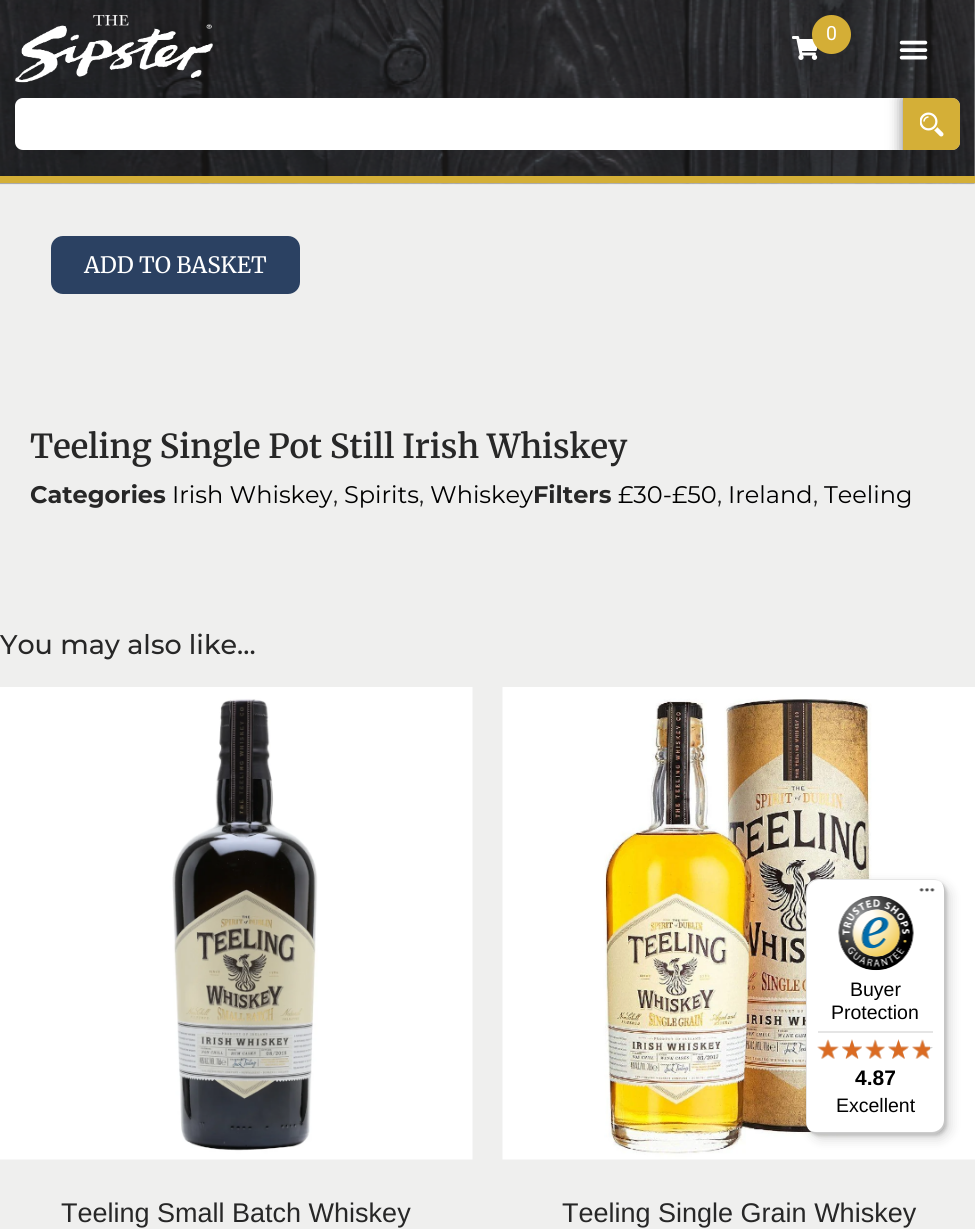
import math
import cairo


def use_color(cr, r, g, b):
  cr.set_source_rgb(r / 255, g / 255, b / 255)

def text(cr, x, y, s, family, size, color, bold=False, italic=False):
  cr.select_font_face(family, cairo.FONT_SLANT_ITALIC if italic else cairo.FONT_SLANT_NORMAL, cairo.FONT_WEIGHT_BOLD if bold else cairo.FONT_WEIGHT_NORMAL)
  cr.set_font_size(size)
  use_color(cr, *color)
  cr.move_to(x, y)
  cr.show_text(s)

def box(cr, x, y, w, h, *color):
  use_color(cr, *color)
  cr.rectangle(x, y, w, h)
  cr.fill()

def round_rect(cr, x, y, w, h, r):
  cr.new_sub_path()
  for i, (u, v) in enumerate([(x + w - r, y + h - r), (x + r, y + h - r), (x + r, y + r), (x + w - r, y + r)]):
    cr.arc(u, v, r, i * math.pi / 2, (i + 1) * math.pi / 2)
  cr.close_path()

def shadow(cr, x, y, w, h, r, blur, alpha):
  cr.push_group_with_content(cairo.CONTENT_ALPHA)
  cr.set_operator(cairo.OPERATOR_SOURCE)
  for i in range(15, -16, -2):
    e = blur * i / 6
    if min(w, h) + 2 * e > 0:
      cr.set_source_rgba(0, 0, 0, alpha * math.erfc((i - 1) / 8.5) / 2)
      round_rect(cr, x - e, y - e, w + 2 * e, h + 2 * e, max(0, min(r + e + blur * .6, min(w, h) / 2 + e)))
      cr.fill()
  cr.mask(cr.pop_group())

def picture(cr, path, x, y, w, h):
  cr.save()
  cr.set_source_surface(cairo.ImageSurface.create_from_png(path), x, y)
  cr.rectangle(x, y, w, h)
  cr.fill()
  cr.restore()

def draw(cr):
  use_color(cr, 239, 239, 238)
  cr.paint()
  picture(cr, "img_01.png", 0, 0, 975, 185)
  box(cr, 0, 176, 975, 7, 212, 175, 55)
  picture(cr, "img_02.png", 15, 15, 198, 68)
  picture(cr, "img_03.png", 792, 36, 26, 24)
  use_color(cr, 212, 174, 54)
  cr.arc(831.5, 34.5, 19.5, 0, 2 * math.pi)
  cr.fill()
  picture(cr, "img_04.png", 899, 40, 29, 20)
  use_color(cr, 255, 255, 255)
  round_rect(cr, 15, 98, 945, 52, 8)
  cr.fill()
  cr.save()
  round_rect(cr, 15, 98, 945, 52, 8)
  cr.clip()
  use_color(cr, 0, 0, 0)
  shadow(cr, 903, 98, 57, 54, 0, 7.5, 0.5)
  cr.restore()
  use_color(cr, 212, 175, 55)
  cr.new_path()
  cr.move_to(903, 98)
  cr.line_to(952, 98)
  cr.curve_to(956.5, 98, 960, 101.5, 960, 106)
  cr.line_to(960, 142)
  cr.curve_to(960, 146.5, 956.5, 150, 952, 150)
  cr.line_to(903, 150)
  cr.close_path()
  cr.fill()
  picture(cr, "img_05.png", 920, 112, 24, 25)
  use_color(cr, 43, 65, 98)
  round_rect(cr, 52.5, 237.5, 246, 55, 10.5)
  cr.fill_preserve()
  cr.set_line_width(3)
  cr.stroke()
  picture(cr, "img_06.png", 0, 687, 473, 473)
  picture(cr, "img_07.png", 502, 687, 473, 473)
  use_color(cr, 0, 0, 0)
  shadow(cr, 810, 884, 140, 255, 12, 6, 0.15)
  shadow(cr, 807, 881, 140, 255, 12, 1.5, 0.15)
  use_color(cr, 255, 255, 255)
  round_rect(cr, 806, 879, 139, 255, 12)
  cr.fill()
  cr.set_source_rgba(0, 0, 0, 0.1)
  cr.new_path()
  cr.move_to(819, 880)
  cr.line_to(934, 880)
  cr.curve_to(937, 880, 940, 881, 942, 883)
  cr.curve_to(940, 881, 937, 879, 933, 879)
  cr.line_to(818, 879)
  cr.curve_to(811, 879, 806, 884, 806, 891)
  cr.line_to(806, 1122)
  cr.curve_to(806, 1124, 807, 1127, 808, 1129)
  cr.line_to(807, 1124)
  cr.line_to(807, 892)
  cr.curve_to(807, 886, 812, 880, 819, 880)
  cr.close_path()
  cr.fill()
  cr.set_source_rgba(0, 0, 0, 0.2)
  cr.new_path()
  cr.move_to(809, 1130)
  cr.curve_to(811, 1132, 814, 1134, 818, 1134)
  cr.line_to(933, 1134)
  cr.curve_to(940, 1134, 945, 1129, 945, 1122)
  cr.line_to(945, 891)
  cr.curve_to(945, 887, 943, 884, 941, 882)
  cr.curve_to(943, 884, 944, 887, 944, 890)
  cr.line_to(944, 1120)
  cr.curve_to(944, 1127, 938, 1132, 932, 1132)
  cr.line_to(816, 1132)
  cr.curve_to(813, 1132, 811, 1131, 809, 1130)
  cr.close_path()
  cr.fill()
  cr.set_source_rgba(0.196, 0.196, 0.196, 0.2)
  cr.new_path()
  cr.move_to(810, 1131)
  cr.curve_to(812, 1133, 815, 1134, 818, 1134)
  cr.line_to(933, 1134)
  cr.curve_to(940, 1134, 945, 1129, 945, 1122)
  cr.line_to(945, 891)
  cr.curve_to(945, 888, 944, 885, 942, 883)
  cr.curve_to(943, 885, 944, 887, 944, 890)
  cr.line_to(944, 1121)
  cr.curve_to(944, 1128, 939, 1133, 932, 1133)
  cr.line_to(817, 1133)
  cr.curve_to(814, 1133, 812, 1132, 810, 1131)
  cr.close_path()
  cr.fill()
  cr.set_source_rgba(1, 1, 1, 0.3)
  cr.new_path()
  cr.move_to(810, 1131)
  cr.curve_to(812, 1133, 815, 1134, 818, 1134)
  cr.line_to(933, 1134)
  cr.curve_to(940, 1134, 945, 1129, 945, 1122)
  cr.line_to(945, 891)
  cr.curve_to(945, 887, 943, 884, 941, 882)
  cr.curve_to(943, 884, 944, 887, 944, 890)
  cr.line_to(944, 1121)
  cr.curve_to(944, 1128, 939, 1133, 932, 1133)
  cr.line_to(817, 1133)
  cr.curve_to(814, 1133, 812, 1132, 810, 1131)
  cr.close_path()
  cr.fill()
  picture(cr, "img_08.png", 919, 888, 16, 4)
  picture(cr, "img_09.png", 838, 896, 76, 75)
  box(cr, 818, 1031, 115, 2, 229, 229, 229)
  picture(cr, "img_10.png", 817, 1040, 22, 19)
  picture(cr, "img_11.png", 842, 1039, 20, 20)
  picture(cr, "img_12.png", 865, 1040, 20, 19)
  picture(cr, "img_13.png", 888, 1039, 21, 20)
  picture(cr, "img_14.png", 912, 1040, 21, 19)
  picture(cr, "img_15.png", 817, 1039, 22, 20)
  picture(cr, "img_16.png", 842, 1039, 20, 20)
  picture(cr, "img_17.png", 865, 1039, 20, 20)
  picture(cr, "img_18.png", 888, 1039, 21, 20)
  picture(cr, "img_19.png", 912, 1039, 18, 20)
  text(cr, 826, 40, "0", "Roboto", 19.5, (255, 255, 255))
  text(cr, 84, 273, "ADD TO BASKET", "Merriweather", 22.5, (255, 255, 255))
  text(cr, 30, 458, "Teeling Single Pot Still Irish Whiskey", "Merriweather SemiBold", 33, (39, 39, 39))
  text(cr, 30, 503, "Categories", "Montserrat", 24, (39, 39, 39), bold=True)
  text(cr, 172, 503, "Irish Whiskey", "Montserrat", 24, (0, 0, 0))
  text(cr, 333, 503, ",", "Montserrat", 24, (39, 39, 39))
  text(cr, 344, 503, "Spirits", "Montserrat", 24, (0, 0, 0))
  text(cr, 419, 503, ",", "Montserrat", 24, (39, 39, 39))
  text(cr, 430, 503, "Whiskey", "Montserrat", 24, (0, 0, 0))
  text(cr, 533, 503, "Filters", "Montserrat", 24, (39, 39, 39), bold=True)
  text(cr, 618, 503, "£30-£50", "Montserrat", 24, (0, 0, 0))
  text(cr, 717, 503, ",", "Montserrat", 24, (39, 39, 39))
  text(cr, 728, 503, "Ireland", "Montserrat", 24, (0, 0, 0))
  text(cr, 813, 503, ",", "Montserrat", 24, (39, 39, 39))
  text(cr, 824, 503, "Teeling", "Montserrat", 24, (0, 0, 0))
  text(cr, 0, 654, "You may also like…", "Montserrat Medium", 27, (39, 39, 39))
  text(cr, 61, 1222, "Teeling Small Batch Whiskey", "Liberation Sans", 27, (39, 39, 39))
  text(cr, 562, 1222, "Teeling Single Grain Whiskey", "Liberation Sans", 27, (39, 39, 39))
  text(cr, 850, 996, "Buyer", "Liberation Sans", 19.5, (0, 0, 0))
  text(cr, 831, 1019, "Protection", "Liberation Sans", 19.5, (0, 0, 0))
  text(cr, 855, 1085, "4.87", "Liberation Sans", 21, (0, 0, 0), bold=True)
  text(cr, 836, 1112, "Excellent", "Liberation Sans", 19.5, (0, 0, 0))


surface = cairo.ImageSurface(cairo.FORMAT_RGB24, 975, 1229)
cr = cairo.Context(surface)
options = cairo.FontOptions()
options.set_hint_metrics(cairo.HINT_METRICS_OFF)
options.set_hint_style(cairo.HINT_STYLE_NONE)
cr.set_font_options(options)
cr.set_miter_limit(4)
draw(cr)
surface.write_to_png("out.png")
